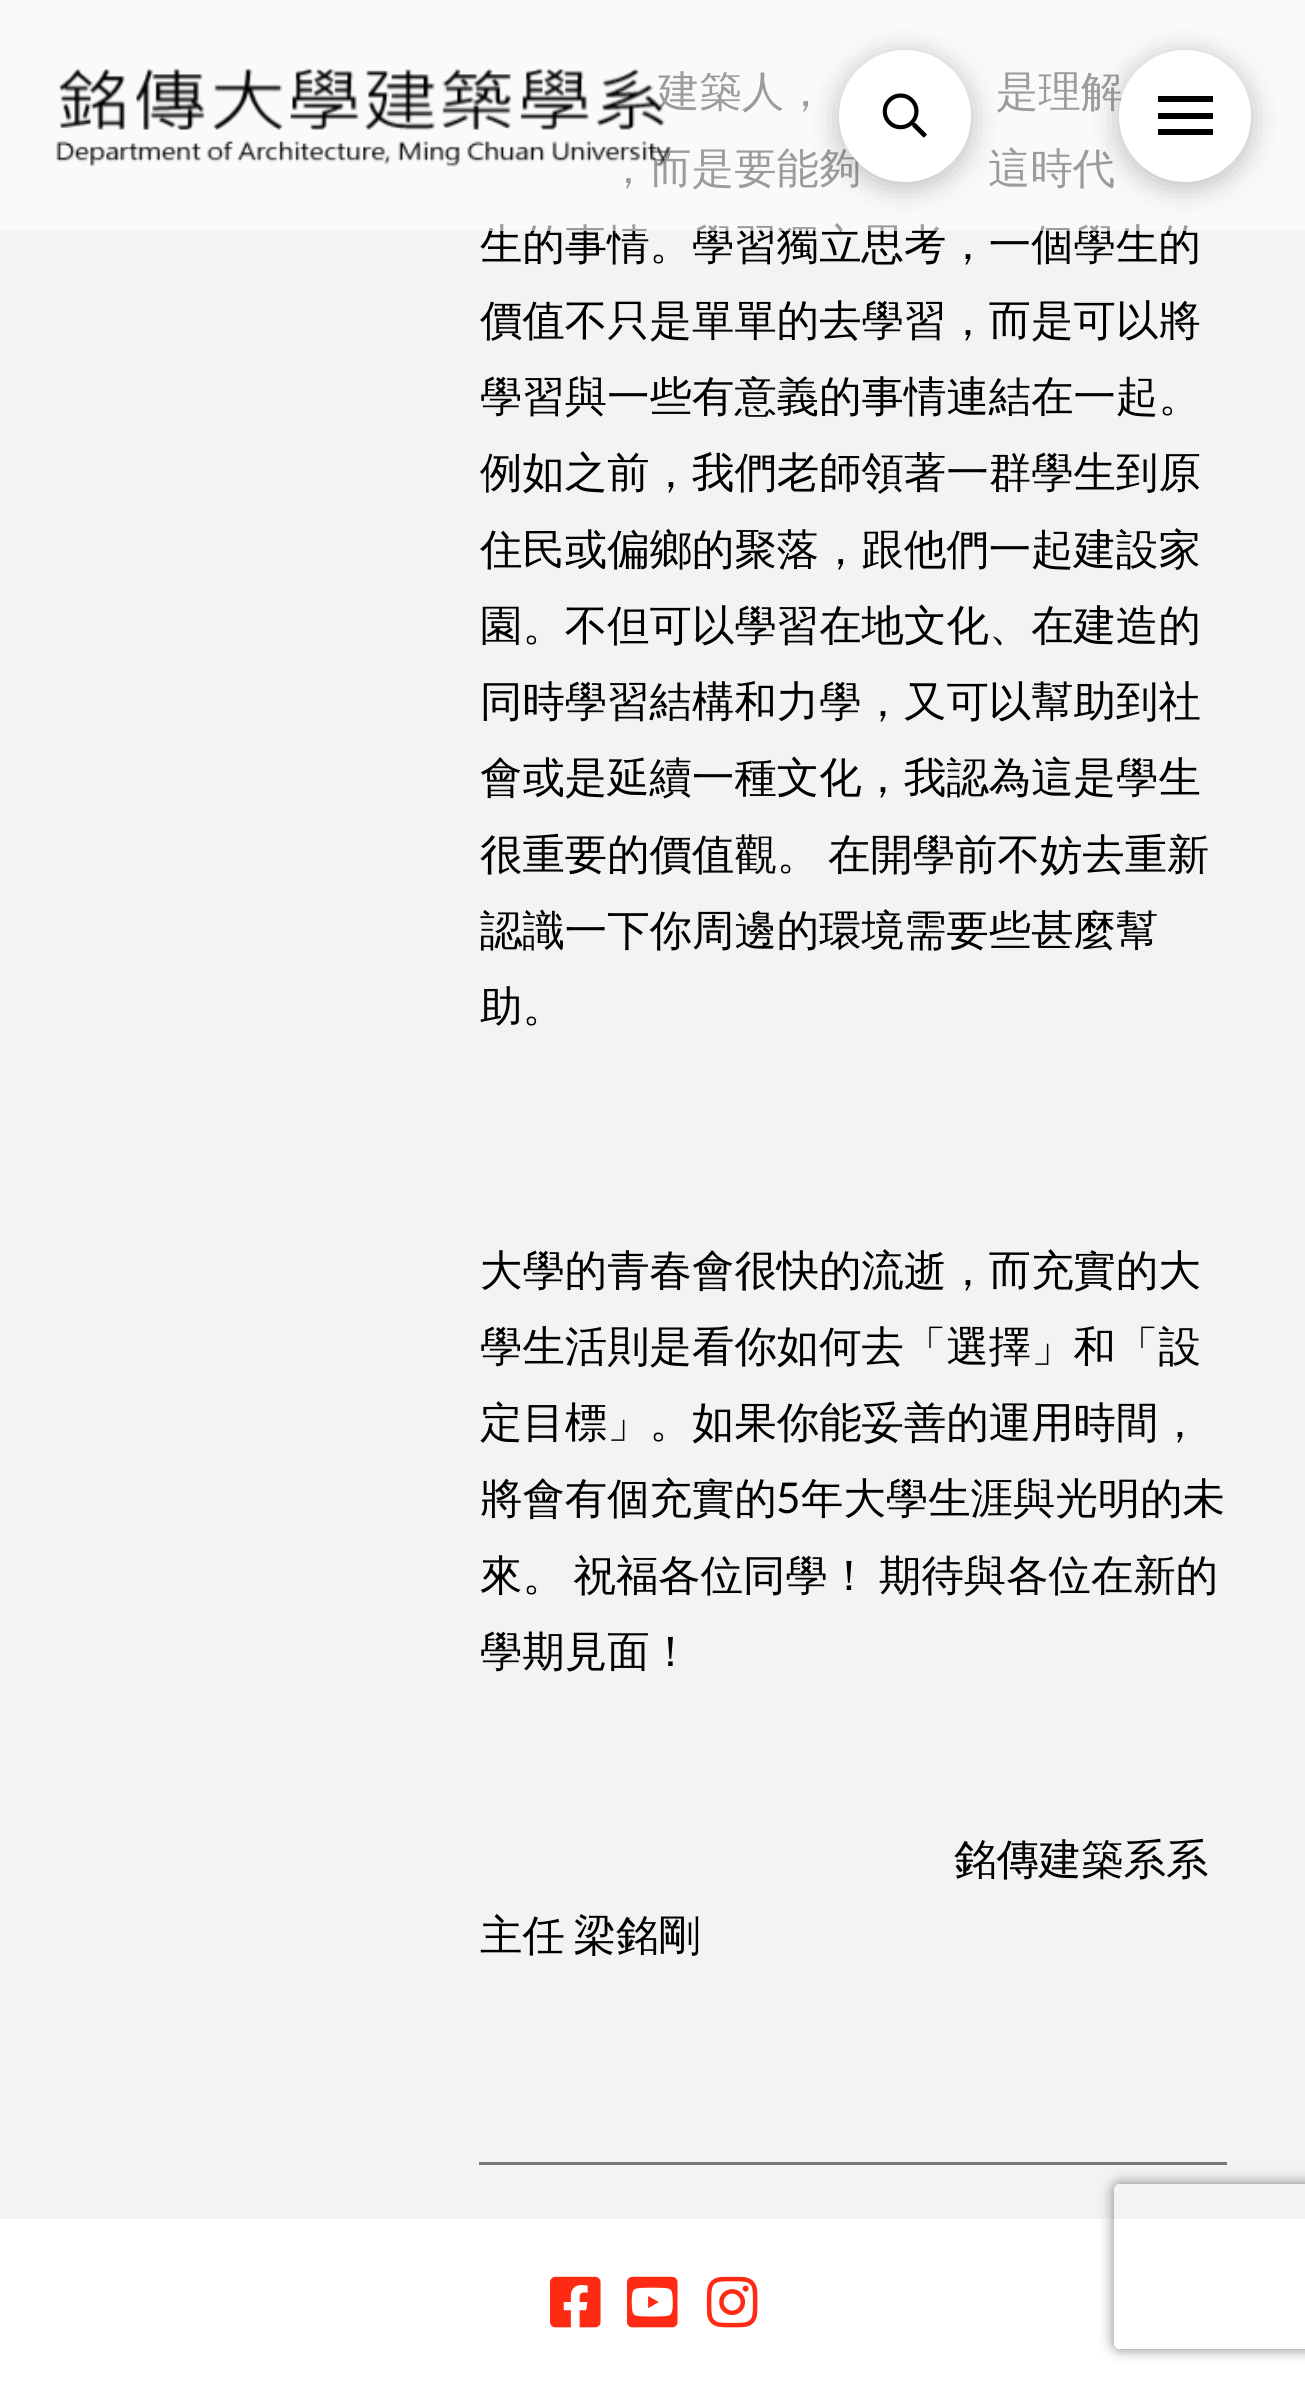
import math
import cairo


def use_color(cr, r, g, b):
  cr.set_source_rgb(r / 255, g / 255, b / 255)

def text(cr, x, y, s, family, size, color, bold=False, italic=False):
  cr.select_font_face(family, cairo.FONT_SLANT_ITALIC if italic else cairo.FONT_SLANT_NORMAL, cairo.FONT_WEIGHT_BOLD if bold else cairo.FONT_WEIGHT_NORMAL)
  cr.set_font_size(size)
  use_color(cr, *color)
  cr.move_to(x, y)
  cr.show_text(s)

def spaced_text(cr, x, y, s, letter, word):
  cr.move_to(x, y)
  for ch in s:
    cr.show_text(ch)
    cr.rel_move_to(letter + word * (ch == ' '), 0)

def box(cr, x, y, w, h, *color):
  use_color(cr, *color)
  cr.rectangle(x, y, w, h)
  cr.fill()

def round_rect(cr, x, y, w, h, r):
  cr.new_sub_path()
  for i, (u, v) in enumerate([(x + w - r, y + h - r), (x + r, y + h - r), (x + r, y + r), (x + w - r, y + r)]):
    cr.arc(u, v, r, i * math.pi / 2, (i + 1) * math.pi / 2)
  cr.close_path()

def shadow(cr, x, y, w, h, r, blur, alpha):
  cr.push_group_with_content(cairo.CONTENT_ALPHA)
  cr.set_operator(cairo.OPERATOR_SOURCE)
  for i in range(15, -16, -2):
    e = blur * i / 6
    if min(w, h) + 2 * e > 0:
      cr.set_source_rgba(0, 0, 0, alpha * math.erfc((i - 1) / 8.5) / 2)
      round_rect(cr, x - e, y - e, w + 2 * e, h + 2 * e, max(0, min(r + e + blur * .6, min(w, h) / 2 + e)))
      cr.fill()
  cr.mask(cr.pop_group())

def picture(cr, path, x, y, w, h):
  cr.save()
  cr.set_source_surface(cairo.ImageSurface.create_from_png(path), x, y)
  cr.rectangle(x, y, w, h)
  cr.fill()
  cr.restore()

def draw(cr):
  use_color(cr, 243, 243, 243)
  cr.paint()
  box(cr, 0, 2219, 1305, 168, 255, 255, 255)
  cr.save()
  cr.set_fill_rule(cairo.FILL_RULE_EVEN_ODD)
  cr.new_path()
  cr.move_to(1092, 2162)
  cr.line_to(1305, 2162)
  cr.line_to(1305, 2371)
  cr.line_to(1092, 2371)
  cr.close_path()
  cr.move_to(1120, 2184)
  cr.line_to(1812, 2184)
  cr.curve_to(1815.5, 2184, 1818, 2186.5, 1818, 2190)
  cr.line_to(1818, 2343)
  cr.curve_to(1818, 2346.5, 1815.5, 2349, 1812, 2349)
  cr.line_to(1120, 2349)
  cr.curve_to(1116.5, 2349, 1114, 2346.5, 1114, 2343)
  cr.line_to(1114, 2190)
  cr.curve_to(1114, 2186.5, 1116.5, 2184, 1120, 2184)
  cr.close_path()
  cr.clip()
  use_color(cr, 128, 128, 128)
  shadow(cr, 1114, 2184, 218, 165, 6, 7, 1)
  cr.restore()
  box(cr, 479, 2162, 748, 3, 121, 121, 121)
  picture(cr, "img_03.png", 550, 2276, 51, 52)
  picture(cr, "img_04.png", 627, 2276, 51, 52)
  picture(cr, "img_05.png", 706, 2276, 52, 52)
  text(cr, 657, 106, "建築人，", "WenQuanYi Zen Hei Medium", 42.4, (0, 0, 0))
  text(cr, 996, 106, "是理解", "WenQuanYi Zen Hei Medium", 42.4, (0, 0, 0))
  text(cr, 607, 183, "，而是要能夠", "WenQuanYi Zen Hei Medium", 42.4, (0, 0, 0))
  text(cr, 988, 183, "這時代", "WenQuanYi Zen Hei Medium", 42.4, (0, 0, 0))
  text(cr, 480, 259, "生的事情。學習獨立思考，一個學生的", "WenQuanYi Zen Hei Medium", 42.4, (0, 0, 0))
  cr.set_source_rgba(1, 1, 1, 0.61)
  cr.rectangle(0, 0, 1305, 231)
  cr.fill()
  use_color(cr, 0, 0, 0)
  shadow(cr, 1119, 55, 132, 132, 66, 14.5, 0.25)
  use_color(cr, 255, 255, 255)
  cr.arc(1185, 116, 66, 0, 2 * math.pi)
  cr.fill()
  box(cr, 1158, 129, 55, 6, 0, 0, 0)
  box(cr, 1158, 113, 55, 6, 0, 0, 0)
  box(cr, 1158, 96, 55, 6, 0, 0, 0)
  use_color(cr, 0, 0, 0)
  shadow(cr, 839, 55, 132, 132, 66, 14.5, 0.25)
  use_color(cr, 255, 255, 255)
  cr.arc(905, 116, 66, 0, 2 * math.pi)
  cr.fill()
  picture(cr, "img_02.png", 882, 93, 45, 45)
  picture(cr, "img_01.png", 56, 68, 616, 99)
  text(cr, 480, 335, "價值不只是單單的去學習，而是可以將", "WenQuanYi Zen Hei Medium", 42.4, (0, 0, 0))
  text(cr, 480, 411, "學習與一些有意義的事情連結在一起。", "WenQuanYi Zen Hei Medium", 42.4, (0, 0, 0))
  text(cr, 480, 487, "例如之前，我們老師領著一群學生到原", "WenQuanYi Zen Hei Medium", 42.4, (0, 0, 0))
  text(cr, 480, 564, "住民或偏鄉的聚落，跟他們一起建設家", "WenQuanYi Zen Hei Medium", 42.4, (0, 0, 0))
  text(cr, 480, 640, "園。不但可以學習在地文化、在建造的", "WenQuanYi Zen Hei Medium", 42.4, (0, 0, 0))
  text(cr, 480, 716, "同時學習結構和力學，又可以幫助到社", "WenQuanYi Zen Hei Medium", 42.4, (0, 0, 0))
  text(cr, 480, 792, "會或是延續一種文化，我認為這是學生", "WenQuanYi Zen Hei Medium", 42.4, (0, 0, 0))
  spaced_text(cr, 480, 869, "很重要的價值觀。 在開學前不妨去重新", 0, -4)
  text(cr, 480, 945, "認識一下你周邊的環境需要些甚麼幫", "WenQuanYi Zen Hei Medium", 42.4, (0, 0, 0))
  text(cr, 480, 1021, "助。", "WenQuanYi Zen Hei Medium", 42.4, (0, 0, 0))
  text(cr, 480, 1285, "大學的青春會很快的流逝，而充實的大", "WenQuanYi Zen Hei Medium", 42.4, (0, 0, 0))
  text(cr, 480, 1361, "學生活則是看你如何去「選擇」和「設", "WenQuanYi Zen Hei Medium", 42.4, (0, 0, 0))
  text(cr, 480, 1437, "定目標」。如果你能妥善的運用時間，", "WenQuanYi Zen Hei Medium", 42.4, (0, 0, 0))
  text(cr, 480, 1513, "將會有個充實的", "WenQuanYi Zen Hei Medium", 42.4, (0, 0, 0))
  text(cr, 776, 1513, "5", "Lato", 42.4, (0, 0, 0))
  text(cr, 801, 1513, "年大學生涯與光明的未", "WenQuanYi Zen Hei Medium", 42.4, (0, 0, 0))
  spaced_text(cr, 480, 1590, "來。 祝福各位同學！ 期待與各位在新的", 0, -4)
  text(cr, 480, 1666, "學期見面！", "WenQuanYi Zen Hei Medium", 42.4, (0, 0, 0))
  text(cr, 954, 1874, "銘傳建築系系", "WenQuanYi Zen Hei Medium", 42.4, (0, 0, 0))
  spaced_text(cr, 480, 1950, "主任 梁銘剛", 0, -4)


surface = cairo.ImageSurface(cairo.FORMAT_RGB24, 1305, 2387)
cr = cairo.Context(surface)
options = cairo.FontOptions()
options.set_hint_metrics(cairo.HINT_METRICS_OFF)
options.set_hint_style(cairo.HINT_STYLE_NONE)
cr.set_font_options(options)
cr.set_miter_limit(4)
draw(cr)
surface.write_to_png("out.png")
